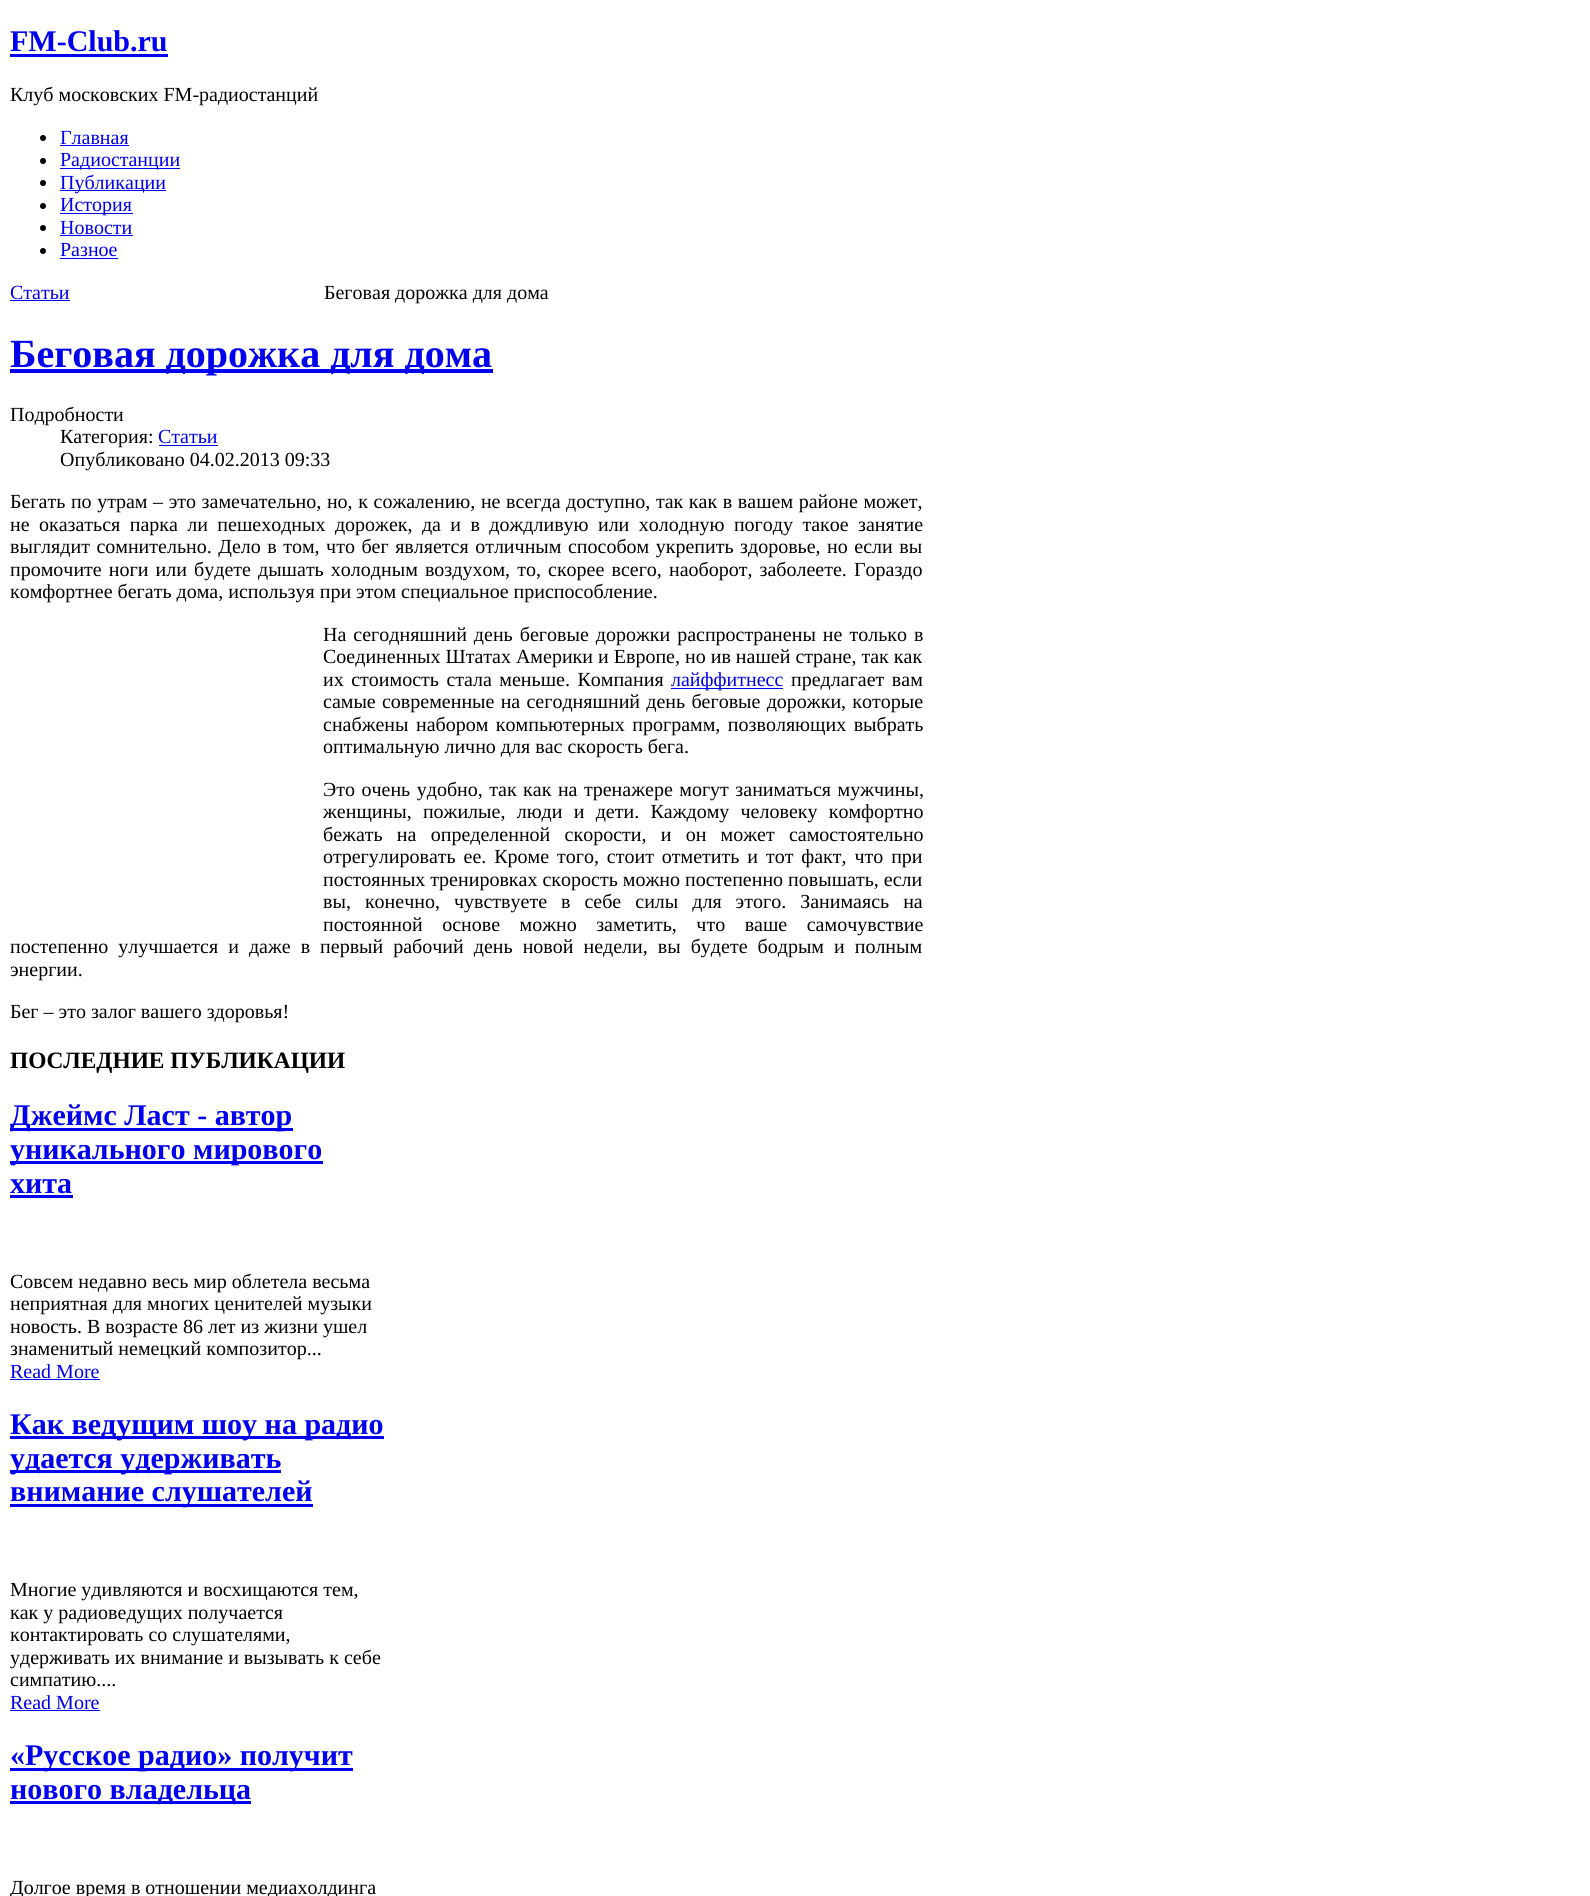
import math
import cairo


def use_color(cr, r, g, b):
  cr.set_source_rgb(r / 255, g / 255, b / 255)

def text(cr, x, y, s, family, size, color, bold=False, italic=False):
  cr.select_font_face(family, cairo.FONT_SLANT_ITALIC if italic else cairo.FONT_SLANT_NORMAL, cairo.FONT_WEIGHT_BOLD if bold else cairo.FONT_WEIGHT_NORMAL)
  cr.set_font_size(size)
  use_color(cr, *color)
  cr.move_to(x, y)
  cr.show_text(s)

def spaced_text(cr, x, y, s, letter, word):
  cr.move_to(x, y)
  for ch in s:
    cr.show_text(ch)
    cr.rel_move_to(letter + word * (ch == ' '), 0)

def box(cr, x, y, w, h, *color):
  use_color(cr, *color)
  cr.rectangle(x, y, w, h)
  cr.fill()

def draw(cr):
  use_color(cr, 255, 255, 255)
  cr.paint()
  box(cr, 10, 54, 158, 3, 0, 0, 238)
  use_color(cr, 0, 0, 0)
  cr.arc(43, 138, 3, 0, 2 * math.pi)
  cr.fill()
  box(cr, 60, 145, 69, 1, 0, 0, 238)
  use_color(cr, 0, 0, 0)
  cr.arc(43, 161, 3, 0, 2 * math.pi)
  cr.fill()
  box(cr, 60, 168, 120, 1, 0, 0, 238)
  use_color(cr, 0, 0, 0)
  cr.arc(43, 183, 3, 0, 2 * math.pi)
  cr.fill()
  box(cr, 60, 190, 106, 1, 0, 0, 238)
  use_color(cr, 0, 0, 0)
  cr.arc(43, 206, 3, 0, 2 * math.pi)
  cr.fill()
  box(cr, 60, 213, 73, 1, 0, 0, 238)
  use_color(cr, 0, 0, 0)
  cr.arc(43, 228, 3, 0, 2 * math.pi)
  cr.fill()
  box(cr, 60, 235, 73, 1, 0, 0, 238)
  use_color(cr, 0, 0, 0)
  cr.arc(43, 251, 3, 0, 2 * math.pi)
  cr.fill()
  box(cr, 60, 258, 58, 1, 0, 0, 238)
  box(cr, 10, 300, 60, 1, 0, 0, 238)
  box(cr, 10, 369, 483, 4, 0, 0, 238)
  box(cr, 159, 445, 59, 1, 0, 0, 238)
  box(cr, 671, 688, 112, 1, 0, 0, 238)
  box(cr, 10, 1128, 283, 3, 0, 0, 238)
  box(cr, 10, 1161, 313, 3, 0, 0, 238)
  box(cr, 10, 1195, 63, 3, 0, 0, 238)
  box(cr, 10, 1379, 90, 1, 0, 0, 238)
  box(cr, 10, 1436, 374, 3, 0, 0, 238)
  box(cr, 10, 1470, 271, 3, 0, 0, 238)
  box(cr, 10, 1504, 303, 3, 0, 0, 238)
  box(cr, 10, 1710, 90, 1, 0, 0, 238)
  box(cr, 10, 1768, 343, 3, 0, 0, 238)
  box(cr, 10, 1801, 241, 3, 0, 0, 238)
  text(cr, 10, 51, "FM-Club.ru", "Liberation Serif", 30, (0, 0, 238), bold=True)
  text(cr, 10, 101, "Клуб московских FM-радиостанций", "Liberation Serif", 20, (0, 0, 0))
  text(cr, 60, 144, "Главная", "Liberation Serif", 20, (0, 0, 238))
  text(cr, 60, 166, "Радиостанции", "Liberation Serif", 20, (0, 0, 238))
  text(cr, 60, 189, "Публикации", "Liberation Serif", 20, (0, 0, 238))
  text(cr, 60, 211, "История", "Liberation Serif", 20, (0, 0, 238))
  text(cr, 60, 234, "Новости", "Liberation Serif", 20, (0, 0, 238))
  text(cr, 60, 256, "Разное", "Liberation Serif", 20, (0, 0, 238))
  text(cr, 10, 299, "Статьи", "Liberation Serif", 20, (0, 0, 238))
  text(cr, 324, 299, "Беговая дорожка для дома", "Liberation Serif", 20, (0, 0, 0))
  text(cr, 10, 367, "Беговая дорожка для дома", "Liberation Serif", 40, (0, 0, 238), bold=True)
  text(cr, 10, 421, "Подробности", "Liberation Serif", 20, (0, 0, 0))
  text(cr, 60, 443, "Категория:", "Liberation Serif", 20, (0, 0, 0))
  text(cr, 158, 443, "Статьи", "Liberation Serif", 20, (0, 0, 238))
  text(cr, 60, 466, "Опубликовано 04.02.2013 09:33", "Liberation Serif", 20, (0, 0, 0))
  spaced_text(cr, 10, 508, "Бегать по утрам – это замечательно, но, к сожалению, не всегда доступно, так как в вашем районе может,", 0, 0.6)
  spaced_text(cr, 10, 531, "не оказаться парка ли пешеходных дорожек, да и в дождливую или холодную погоду такое занятие", 0, 4.4)
  spaced_text(cr, 10, 553, "выглядит сомнительно. Дело в том, что бег является отличным способом укрепить здоровье, но если вы", 0, 1.5)
  spaced_text(cr, 10, 576, "промочите ноги или будете дышать холодным воздухом, то, скорее всего, наоборот, заболеете. Гораздо", 0, 2.1)
  text(cr, 10, 598, "комфортнее бегать дома, используя при этом специальное приспособление.", "Liberation Serif", 20, (0, 0, 0))
  spaced_text(cr, 323, 641, "На сегодняшний день беговые дорожки распространены не только в", 0, 2)
  text(cr, 323, 663, "Соединенных Штатах Америки и Европе, но ив нашей стране, так как", "Liberation Serif", 20, (0, 0, 0))
  spaced_text(cr, 323, 686, "их стоимость стала меньше. Компания", 0, 2.5)
  text(cr, 671, 686, "лайффитнесс", "Liberation Serif", 20, (0, 0, 238))
  use_color(cr, 0, 0, 0)
  spaced_text(cr, 791, 686, "предлагает вам", 0, 2.5)
  spaced_text(cr, 323, 708, "самые современные на сегодняшний день беговые дорожки, которые", 0, 1.25)
  spaced_text(cr, 323, 731, "снабжены набором компьютерных программ, позволяющих выбрать", 0, 2.5)
  text(cr, 323, 753, "оптимальную лично для вас скорость бега.", "Liberation Serif", 20, (0, 0, 0))
  spaced_text(cr, 323, 796, "Это очень удобно, так как на тренажере могут заниматься мужчины,", 0, 1.5)
  spaced_text(cr, 323, 818, "женщины, пожилые, люди и дети. Каждому человеку комфортно", 0, 6.25)
  spaced_text(cr, 323, 841, "бежать на определенной скорости, и он может самостоятельно", 0, 9.25)
  spaced_text(cr, 323, 863, "отрегулировать ее. Кроме того, стоит отметить и тот факт, что при", 0, 2.9)
  text(cr, 323, 886, "постоянных тренировках скорость можно постепенно повышать, если", "Liberation Serif", 20, (0, 0, 0))
  spaced_text(cr, 323, 908, "вы, конечно, чувствуете в себе силы для этого. Занимаясь на", 0, 9)
  spaced_text(cr, 323, 931, "постоянной основе можно заметить, что ваше самочувствие", 0, 14.5)
  spaced_text(cr, 10, 953, "постепенно улучшается и даже в первый рабочий день новой недели, вы будете бодрым и полным", 0, 5)
  text(cr, 10, 976, "энергии.", "Liberation Serif", 20, (0, 0, 0))
  text(cr, 10, 1018, "Бег – это залог вашего здоровья!", "Liberation Serif", 20, (0, 0, 0))
  text(cr, 10, 1068, "ПОСЛЕДНИЕ ПУБЛИКАЦИИ", "Liberation Serif", 23.4, (0, 0, 0), bold=True)
  text(cr, 10, 1125, "Джеймс Ласт - автор", "Liberation Serif", 30, (0, 0, 238), bold=True)
  text(cr, 10, 1159, "уникального мирового", "Liberation Serif", 30, (0, 0, 238), bold=True)
  text(cr, 10, 1193, "хита", "Liberation Serif", 30, (0, 0, 238), bold=True)
  text(cr, 10, 1288, "Совсем недавно весь мир облетела весьма", "Liberation Serif", 20, (0, 0, 0))
  text(cr, 10, 1310, "неприятная для многих ценителей музыки", "Liberation Serif", 20, (0, 0, 0))
  text(cr, 10, 1333, "новость. В возрасте 86 лет из жизни ушел", "Liberation Serif", 20, (0, 0, 0))
  text(cr, 10, 1355, "знаменитый немецкий композитор...", "Liberation Serif", 20, (0, 0, 0))
  text(cr, 10, 1378, "Read More", "Liberation Serif", 20, (0, 0, 238))
  text(cr, 10, 1434, "Как ведущим шоу на радио", "Liberation Serif", 30, (0, 0, 238), bold=True)
  text(cr, 10, 1468, "удается удерживать", "Liberation Serif", 30, (0, 0, 238), bold=True)
  text(cr, 10, 1501, "внимание слушателей", "Liberation Serif", 30, (0, 0, 238), bold=True)
  text(cr, 10, 1596, "Многие удивляются и восхищаются тем,", "Liberation Serif", 20, (0, 0, 0))
  text(cr, 10, 1619, "как у радиоведущих получается", "Liberation Serif", 20, (0, 0, 0))
  text(cr, 10, 1641, "контактировать со слушателями,", "Liberation Serif", 20, (0, 0, 0))
  text(cr, 10, 1664, "удерживать их внимание и вызывать к себе", "Liberation Serif", 20, (0, 0, 0))
  text(cr, 10, 1686, "симпатию....", "Liberation Serif", 20, (0, 0, 0))
  text(cr, 10, 1709, "Read More", "Liberation Serif", 20, (0, 0, 238))
  text(cr, 10, 1765, "«Русское радио» получит", "Liberation Serif", 30, (0, 0, 238), bold=True)
  text(cr, 10, 1799, "нового владельца", "Liberation Serif", 30, (0, 0, 238), bold=True)
  text(cr, 10, 1894, "Долгое время в отношении медиахолдинга", "Liberation Serif", 20, (0, 0, 0))


surface = cairo.ImageSurface(cairo.FORMAT_RGB24, 1590, 1896)
cr = cairo.Context(surface)
options = cairo.FontOptions()
options.set_hint_metrics(cairo.HINT_METRICS_OFF)
options.set_hint_style(cairo.HINT_STYLE_NONE)
cr.set_font_options(options)
cr.set_miter_limit(4)
draw(cr)
surface.write_to_png("out.png")
